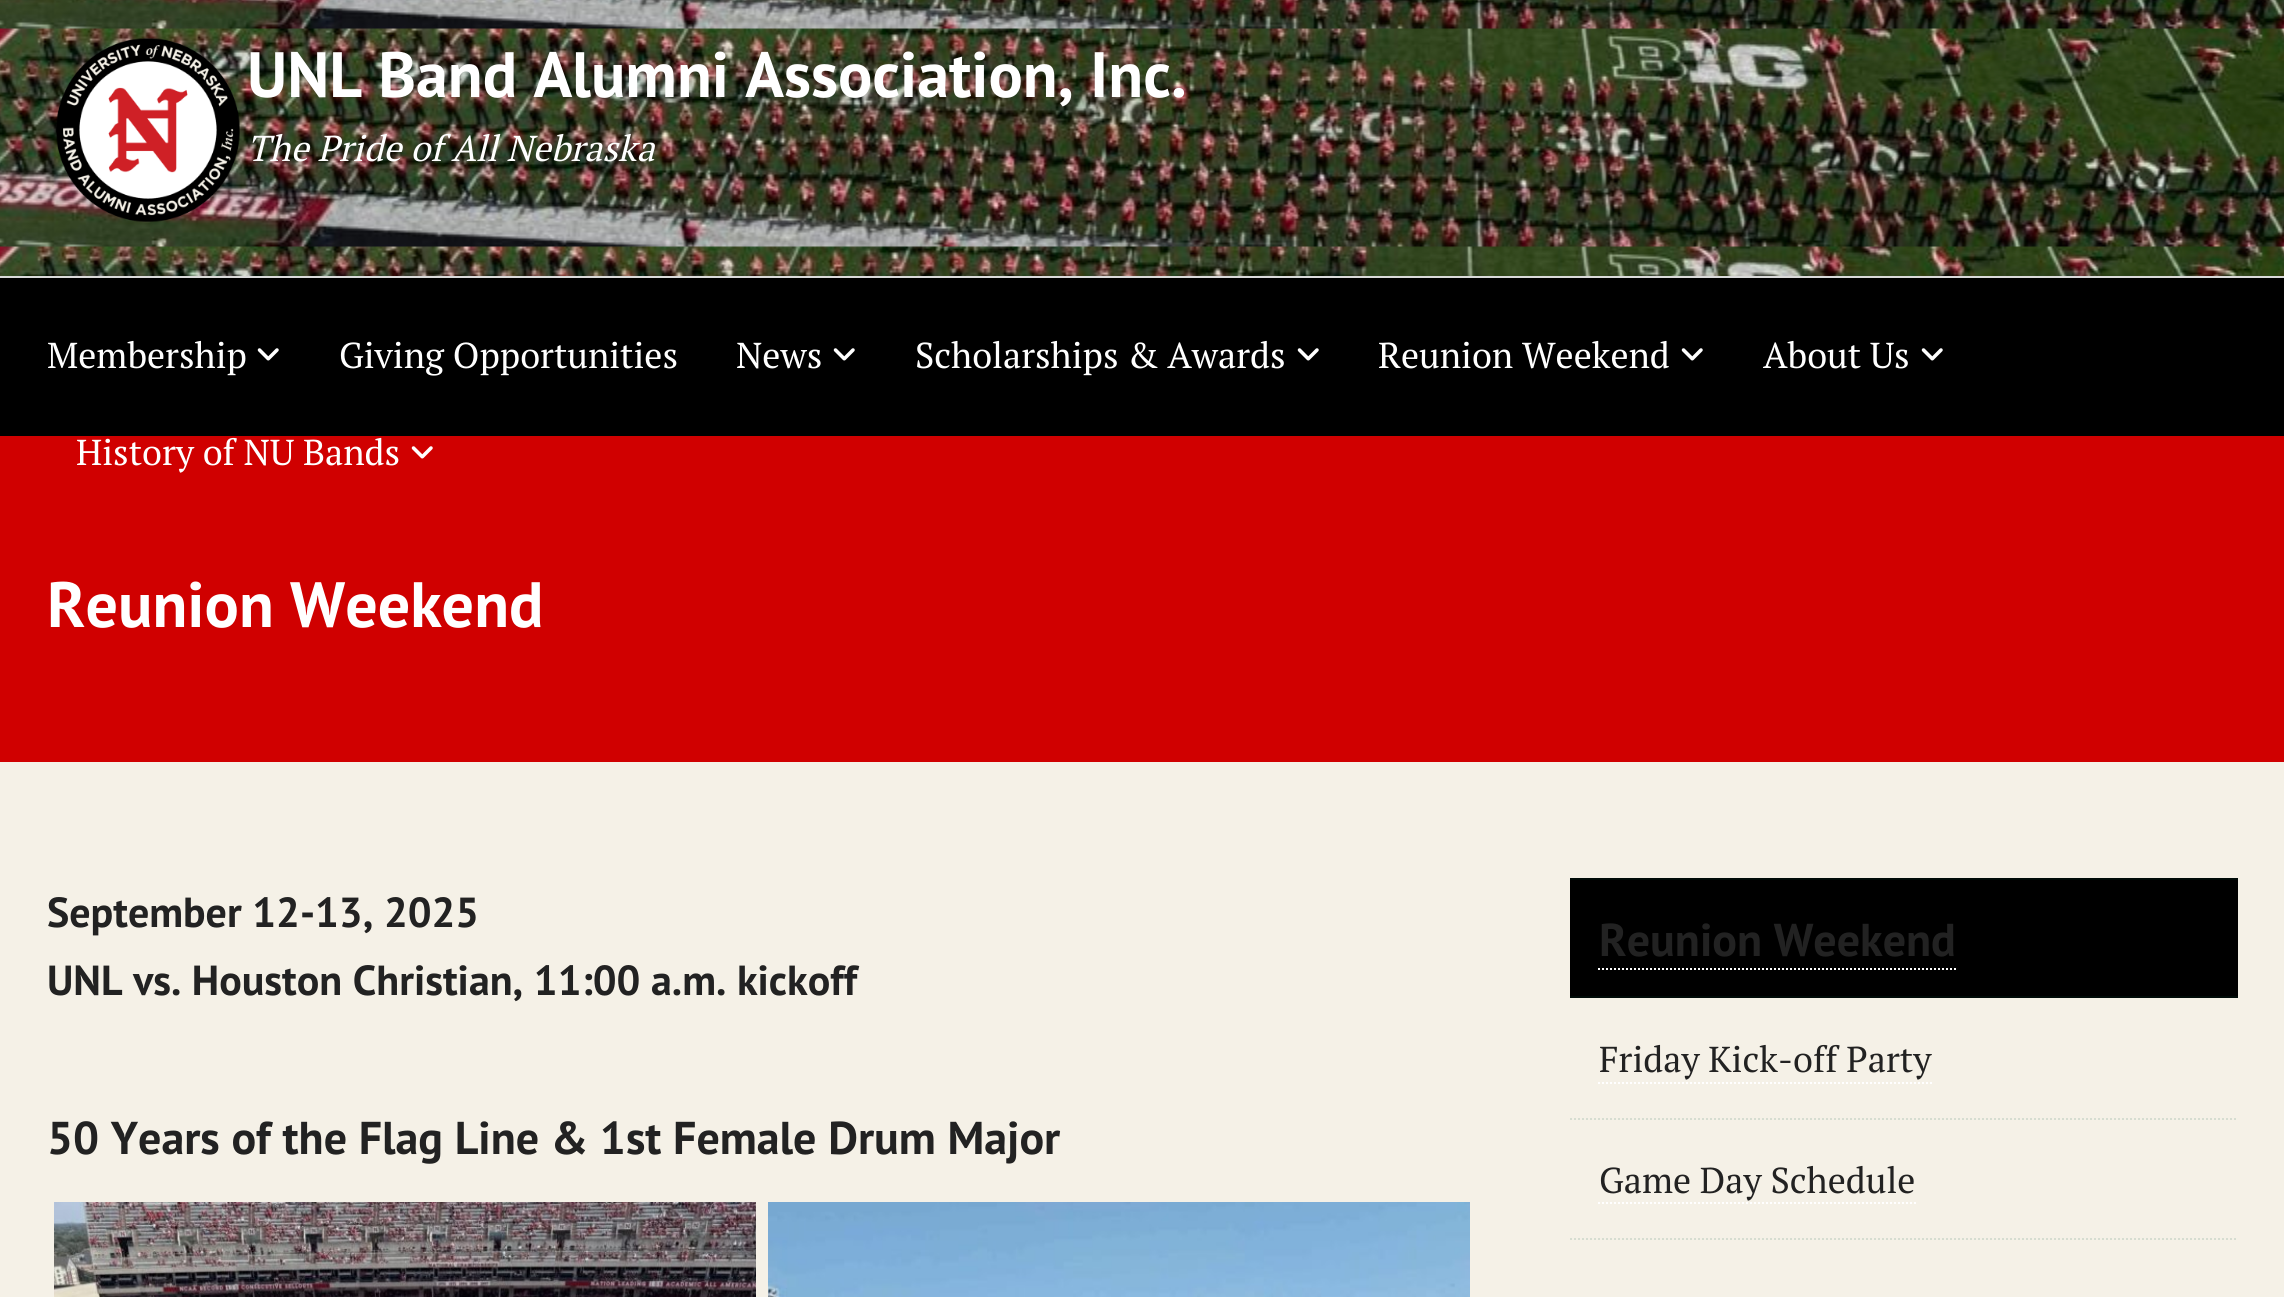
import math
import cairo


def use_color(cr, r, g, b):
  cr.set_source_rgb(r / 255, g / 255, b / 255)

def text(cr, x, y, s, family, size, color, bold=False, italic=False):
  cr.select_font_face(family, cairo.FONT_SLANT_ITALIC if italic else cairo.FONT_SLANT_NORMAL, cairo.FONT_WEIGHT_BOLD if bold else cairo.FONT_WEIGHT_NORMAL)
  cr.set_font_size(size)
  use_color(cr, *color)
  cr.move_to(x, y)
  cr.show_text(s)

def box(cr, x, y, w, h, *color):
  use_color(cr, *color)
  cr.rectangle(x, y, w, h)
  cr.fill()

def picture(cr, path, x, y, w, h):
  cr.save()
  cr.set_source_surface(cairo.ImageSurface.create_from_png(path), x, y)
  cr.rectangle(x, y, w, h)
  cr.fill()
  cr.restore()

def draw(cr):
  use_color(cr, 245, 241, 231)
  cr.paint()
  picture(cr, "img_01.png", 0, 0, 2284, 276)
  picture(cr, "img_02.png", 56, 38, 184, 184)
  box(cr, 0, 278, 2284, 158, 0, 0, 0)
  box(cr, 0, 276, 2284, 2, 218, 218, 218)
  picture(cr, "img_03.png", 257, 348, 22, 13)
  picture(cr, "img_03.png", 833, 348, 22, 13)
  picture(cr, "img_03.png", 1297, 348, 22, 13)
  picture(cr, "img_03.png", 1681, 348, 22, 13)
  picture(cr, "img_03.png", 1921, 348, 22, 13)
  box(cr, 0, 436, 2284, 326, 208, 0, 0)
  picture(cr, "img_04.png", 411, 446, 22, 13)
  picture(cr, "img_05.png", 54, 1202, 702, 95)
  picture(cr, "img_06.png", 768, 1202, 702, 95)
  box(cr, 1570, 880, 668, 116, 0, 0, 0)
  box(cr, 1570, 878, 668, 2, 0, 11, 8)
  box(cr, 1570, 996, 668, 2, 0, 11, 8)
  cr.new_path()
  cr.move_to(1598, 969)
  cr.line_to(1956, 969)
  use_color(cr, 255, 255, 255)
  cr.set_dash([2, 2])
  cr.stroke()
  cr.new_path()
  cr.move_to(1570, 1119)
  cr.line_to(2238, 1119)
  use_color(cr, 214, 221, 209)
  cr.stroke()
  cr.new_path()
  cr.move_to(1598, 1083)
  cr.line_to(1932, 1083)
  use_color(cr, 255, 255, 255)
  cr.stroke()
  cr.new_path()
  cr.move_to(1570, 1239)
  cr.line_to(2238, 1239)
  use_color(cr, 214, 221, 209)
  cr.stroke()
  cr.new_path()
  cr.move_to(1598, 1203)
  cr.line_to(1916, 1203)
  use_color(cr, 255, 255, 255)
  cr.stroke()
  text(cr, 247, 97, "UNL Band Alumni Association, Inc.", "PT Sans", 64, (255, 255, 255), bold=True)
  text(cr, 247, 161, "The Pride of All Nebraska", "PT Serif", 36, (255, 255, 255), italic=True)
  text(cr, 47, 368, "Membership", "PT Serif", 36, (255, 255, 255))
  text(cr, 339, 368, "Giving Opportunities", "PT Serif", 36, (255, 255, 255))
  text(cr, 736, 368, "News", "PT Serif", 36, (255, 255, 255))
  text(cr, 915, 368, "Scholarships & Awards", "PT Serif", 36, (255, 255, 255))
  text(cr, 1378, 368, "Reunion Weekend", "PT Serif", 36, (255, 255, 255))
  text(cr, 1763, 368, "About Us", "PT Serif", 36, (255, 255, 255))
  text(cr, 76, 465, "History of NU Bands", "PT Serif", 36, (255, 255, 255))
  text(cr, 47, 627, "Reunion Weekend", "PT Sans", 64, (255, 255, 255), bold=True)
  text(cr, 47, 927, "September 12-13, 2025", "PT Sans", 42, (34, 34, 34), bold=True)
  text(cr, 47, 995, "UNL vs. Houston Christian, 11:00 a.m. kickoff", "PT Sans", 42, (34, 34, 34), bold=True)
  text(cr, 47, 1154, "50 Years of the Flag Line & 1st Female Drum Major", "PT Sans", 46, (34, 34, 34), bold=True)
  text(cr, 1599, 956, "Reunion Weekend", "PT Sans", 46, (34, 34, 34), bold=True)
  text(cr, 1599, 1072, "Friday Kick-off Party", "PT Serif", 36, (34, 34, 34))
  text(cr, 1599, 1193, "Game Day Schedule", "PT Serif", 36, (34, 34, 34))


surface = cairo.ImageSurface(cairo.FORMAT_RGB24, 2284, 1297)
cr = cairo.Context(surface)
options = cairo.FontOptions()
options.set_hint_metrics(cairo.HINT_METRICS_OFF)
options.set_hint_style(cairo.HINT_STYLE_NONE)
cr.set_font_options(options)
cr.set_miter_limit(4)
draw(cr)
surface.write_to_png("out.png")
